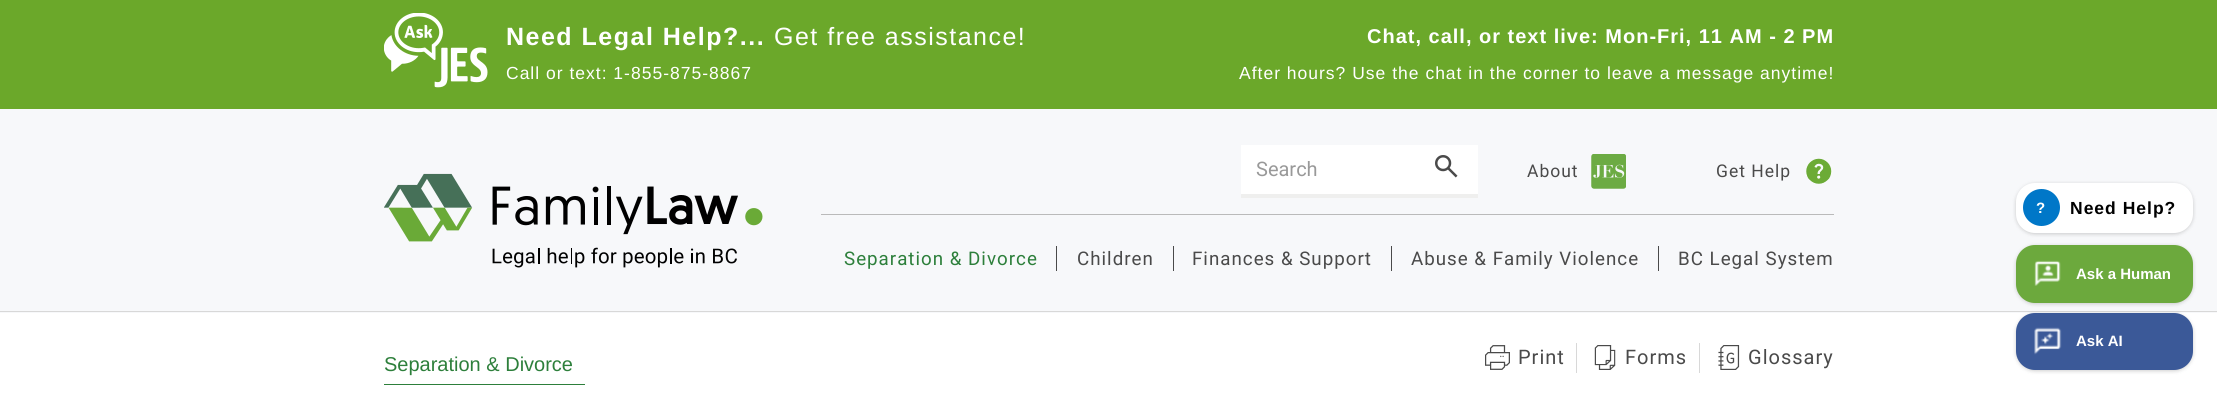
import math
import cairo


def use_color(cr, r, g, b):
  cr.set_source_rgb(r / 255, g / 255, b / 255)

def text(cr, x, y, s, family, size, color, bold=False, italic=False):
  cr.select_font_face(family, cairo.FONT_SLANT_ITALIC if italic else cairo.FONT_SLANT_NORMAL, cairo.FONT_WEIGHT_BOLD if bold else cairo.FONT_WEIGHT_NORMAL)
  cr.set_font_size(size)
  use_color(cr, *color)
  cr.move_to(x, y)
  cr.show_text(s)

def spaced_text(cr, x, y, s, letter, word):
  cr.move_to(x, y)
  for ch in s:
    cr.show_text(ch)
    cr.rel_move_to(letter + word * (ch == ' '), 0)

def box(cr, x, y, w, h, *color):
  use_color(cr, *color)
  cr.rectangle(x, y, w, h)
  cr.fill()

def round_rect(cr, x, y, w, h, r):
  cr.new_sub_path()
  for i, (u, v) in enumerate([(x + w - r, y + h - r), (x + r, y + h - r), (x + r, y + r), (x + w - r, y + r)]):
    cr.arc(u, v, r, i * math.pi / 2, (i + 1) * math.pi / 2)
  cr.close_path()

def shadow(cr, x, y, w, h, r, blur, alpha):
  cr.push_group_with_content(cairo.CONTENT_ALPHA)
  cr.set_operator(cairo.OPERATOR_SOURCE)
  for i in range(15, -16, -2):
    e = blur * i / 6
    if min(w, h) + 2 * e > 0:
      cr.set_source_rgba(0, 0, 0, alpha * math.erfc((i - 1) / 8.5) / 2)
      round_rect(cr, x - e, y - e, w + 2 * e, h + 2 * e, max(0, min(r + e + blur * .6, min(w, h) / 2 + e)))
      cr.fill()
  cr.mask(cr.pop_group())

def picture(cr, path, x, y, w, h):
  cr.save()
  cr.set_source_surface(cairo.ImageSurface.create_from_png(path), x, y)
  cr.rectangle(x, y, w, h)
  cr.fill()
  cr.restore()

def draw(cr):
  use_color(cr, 255, 255, 255)
  cr.paint()
  box(cr, 0, 0, 2217, 109, 107, 168, 42)
  picture(cr, "img_01.png", 384, 13, 104, 75)
  box(cr, 0, 109, 2217, 204, 247, 248, 250)
  box(cr, 0, 311, 2217, 1, 216, 216, 216)
  box(cr, 821, 214, 1013, 1, 186, 186, 186)
  box(cr, 1241, 145, 237, 49, 255, 255, 255)
  box(cr, 1241, 194, 237, 4, 239, 239, 238)
  picture(cr, "img_02.png", 1435, 155, 23, 23)
  picture(cr, "img_03.png", 1591, 154, 35, 35)
  picture(cr, "img_04.png", 1805, 158, 28, 26)
  picture(cr, "img_05.png", 384, 173, 379, 95)
  box(cr, 1056, 246, 1, 25, 74, 74, 74)
  box(cr, 1173, 246, 1, 25, 74, 74, 74)
  box(cr, 1391, 246, 1, 25, 74, 74, 74)
  box(cr, 1658, 246, 1, 25, 74, 74, 74)
  box(cr, 384, 384, 201, 1, 45, 127, 59)
  box(cr, 1576, 343, 1, 30, 216, 216, 216)
  picture(cr, "img_06.png", 1485, 345, 25, 25)
  box(cr, 1699, 343, 1, 30, 216, 216, 216)
  picture(cr, "img_07.png", 1594, 345, 22, 25)
  picture(cr, "img_08.png", 1718, 345, 22, 25)
  use_color(cr, 0, 0, 0)
  shadow(cr, 2016, 184, 177, 50, 19, 2, 0.2)
  use_color(cr, 255, 255, 255)
  round_rect(cr, 2016, 183, 177, 50, 19)
  cr.fill()
  use_color(cr, 0, 119, 200)
  cr.arc(2041.5, 207.5, 18.5, 0, 2 * math.pi)
  cr.fill()
  use_color(cr, 0, 0, 0)
  shadow(cr, 2016, 246, 177, 58, 19, 2, 0.2)
  use_color(cr, 108, 169, 61)
  round_rect(cr, 2016, 245, 177, 58, 19)
  cr.fill()
  picture(cr, "img_09.png", 2034, 260, 27, 26)
  use_color(cr, 0, 0, 0)
  shadow(cr, 2016, 314, 177, 57, 19, 2, 0.2)
  use_color(cr, 59, 89, 152)
  round_rect(cr, 2016, 313, 177, 57, 19)
  cr.fill()
  picture(cr, "img_10.png", 2034, 327, 28, 28)
  cr.select_font_face("Liberation Sans", cairo.FONT_SLANT_NORMAL, cairo.FONT_WEIGHT_BOLD)
  cr.set_font_size(25)
  use_color(cr, 255, 255, 255)
  spaced_text(cr, 506, 45, "Need Legal Help?...", 1.5, 0)
  cr.select_font_face("Liberation Sans")
  spaced_text(cr, 774, 45, "Get free assistance!", 1.5, 0)
  cr.set_font_size(17.5)
  spaced_text(cr, 506, 79, "Call or text: 1-855-875-8867", 1, 0)
  cr.select_font_face("Liberation Sans", cairo.FONT_SLANT_NORMAL, cairo.FONT_WEIGHT_BOLD)
  cr.set_font_size(20)
  spaced_text(cr, 1367, 43, "Chat, call, or text live: Mon-Fri, 11 AM - 2 PM", 1, 0)
  cr.select_font_face("Liberation Sans")
  cr.set_font_size(17.5)
  spaced_text(cr, 1239, 79, "After hours? Use the chat in the corner to leave a message anytime!", 1, 0)
  text(cr, 1256, 176, "Search", "Roboto", 20, (153, 153, 153))
  cr.set_font_size(17.5)
  use_color(cr, 74, 74, 74)
  spaced_text(cr, 1527, 177, "About", 1, 0)
  spaced_text(cr, 1716, 177, "Get Help", 1, 0)
  cr.set_font_size(18.75)
  use_color(cr, 45, 127, 59)
  spaced_text(cr, 844, 265, "Separation & Divorce", 1, 0)
  use_color(cr, 74, 74, 74)
  spaced_text(cr, 1077, 265, "Children", 1, 0)
  spaced_text(cr, 1192, 265, "Finances & Support", 1, 0)
  spaced_text(cr, 1411, 265, "Abuse & Family Violence", 1, 0)
  spaced_text(cr, 1678, 265, "BC Legal System", 1, 0)
  text(cr, 384, 371, "Separation & Divorce", "Liberation Sans", 20, (45, 127, 59))
  cr.select_font_face("Roboto")
  use_color(cr, 74, 74, 74)
  spaced_text(cr, 1518, 364, "Print", 1, 0)
  spaced_text(cr, 1625, 364, "Forms", 1, 0)
  spaced_text(cr, 1748, 364, "Glossary", 1, 0)
  cr.select_font_face("Liberation Sans", cairo.FONT_SLANT_NORMAL, cairo.FONT_WEIGHT_BOLD)
  cr.set_font_size(15)
  use_color(cr, 255, 255, 255)
  spaced_text(cr, 2036, 213, "?", 1, 0)
  cr.set_font_size(17.5)
  use_color(cr, 0, 0, 0)
  spaced_text(cr, 2070, 214, "Need Help?", 1, 0)
  text(cr, 2076, 279, "Ask a Human", "Liberation Sans", 15, (255, 255, 255), bold=True)
  text(cr, 2076, 346, "Ask AI", "Liberation Sans", 15, (255, 255, 255), bold=True)


surface = cairo.ImageSurface(cairo.FORMAT_RGB24, 2217, 394)
cr = cairo.Context(surface)
options = cairo.FontOptions()
options.set_hint_metrics(cairo.HINT_METRICS_OFF)
options.set_hint_style(cairo.HINT_STYLE_NONE)
cr.set_font_options(options)
cr.set_miter_limit(4)
draw(cr)
surface.write_to_png("out.png")
